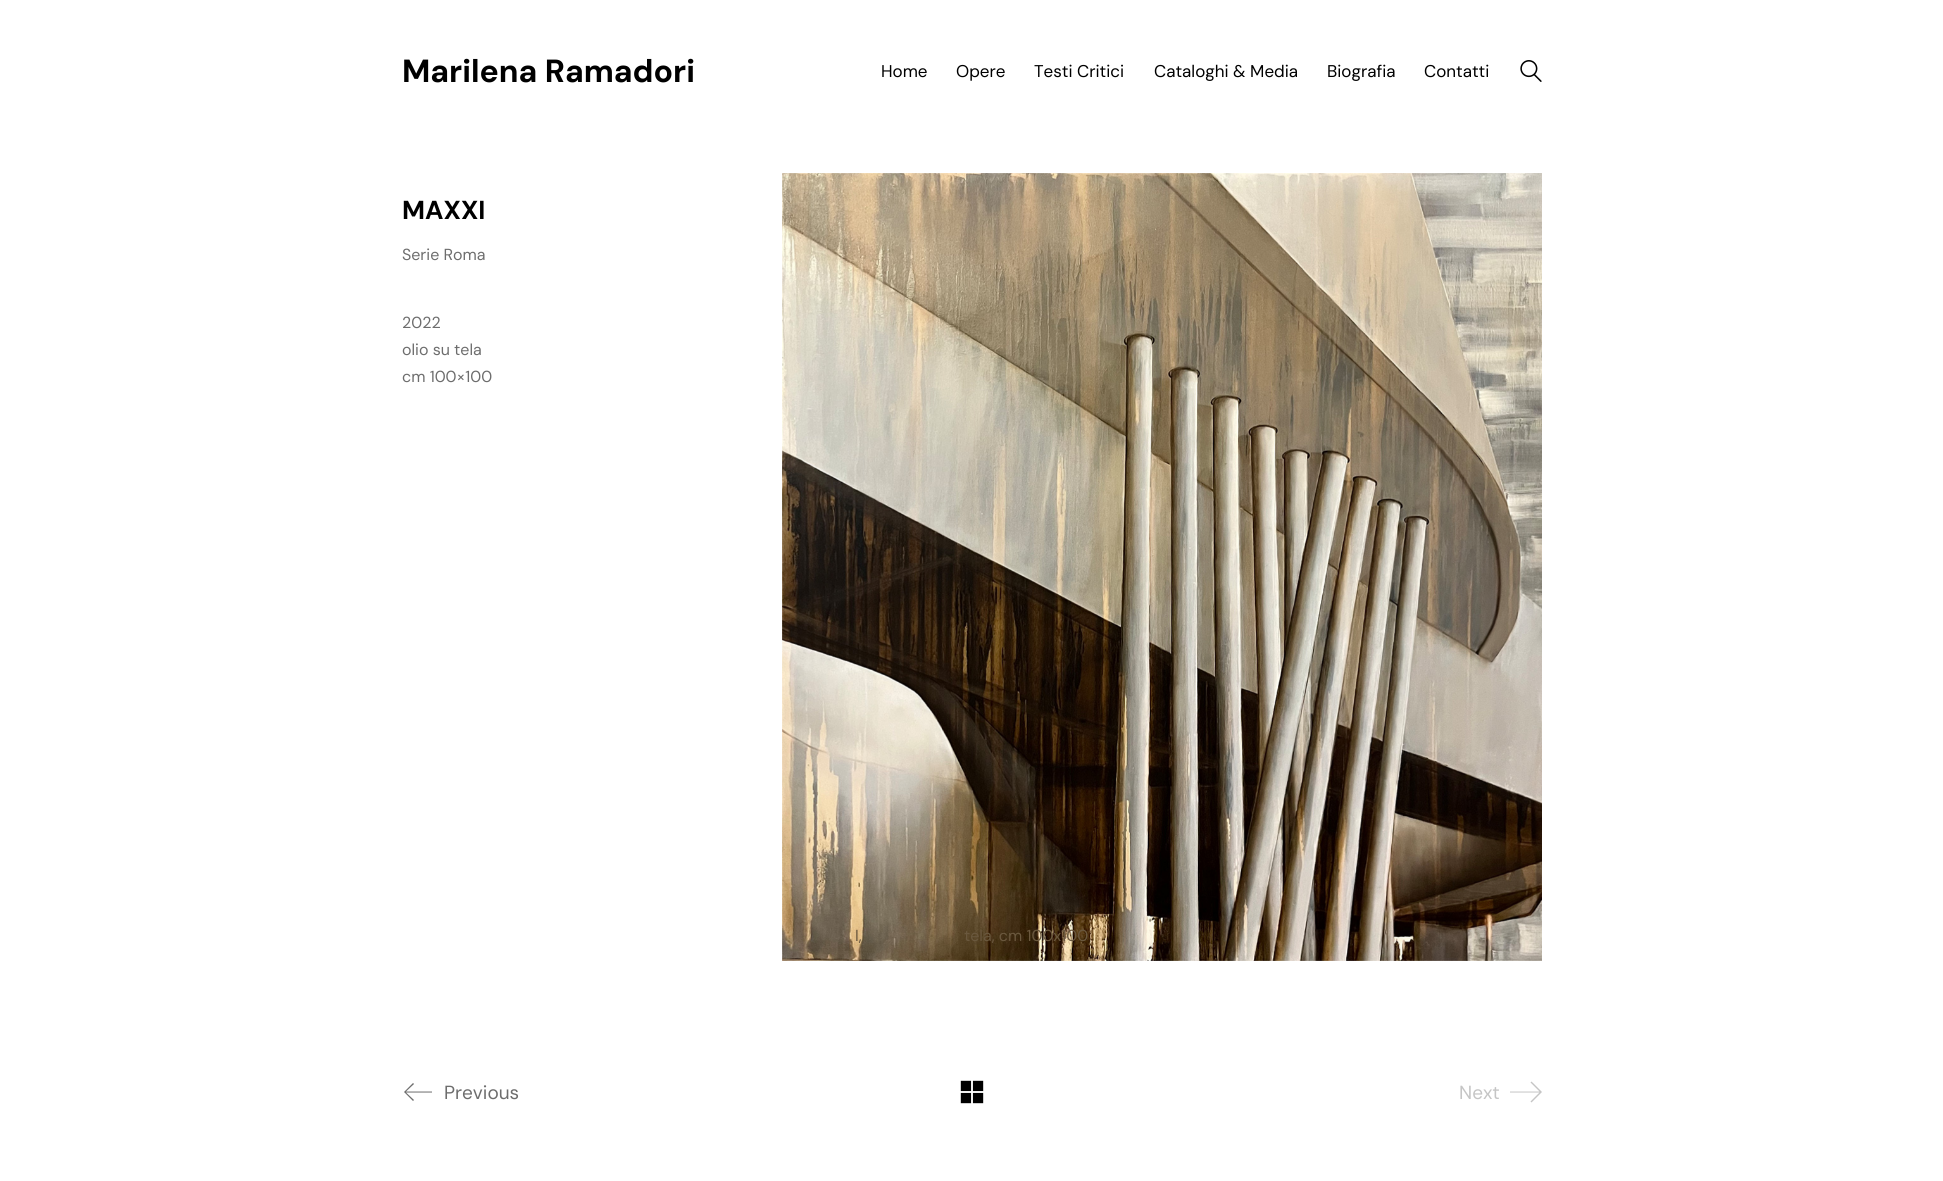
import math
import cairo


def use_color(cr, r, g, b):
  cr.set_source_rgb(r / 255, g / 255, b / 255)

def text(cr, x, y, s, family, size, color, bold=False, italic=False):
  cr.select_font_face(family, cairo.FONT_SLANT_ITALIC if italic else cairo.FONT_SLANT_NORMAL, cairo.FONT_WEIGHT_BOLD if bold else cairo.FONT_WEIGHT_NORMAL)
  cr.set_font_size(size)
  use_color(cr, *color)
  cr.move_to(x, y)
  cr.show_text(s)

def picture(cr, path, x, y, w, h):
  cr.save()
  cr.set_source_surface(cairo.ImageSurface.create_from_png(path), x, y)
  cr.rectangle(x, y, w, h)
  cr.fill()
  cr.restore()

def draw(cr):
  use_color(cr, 255, 255, 255)
  cr.paint()
  picture(cr, "img_01.png", 1520, 60, 22, 22)
  picture(cr, "img_02.png", 782, 173, 760, 788)
  use_color(cr, 109, 109, 109)
  cr.new_path()
  cr.move_to(432, 1091.5)
  cr.line_to(406, 1091.5)
  cr.line_to(414, 1084)
  cr.line_to(413, 1083)
  cr.line_to(404, 1092)
  cr.line_to(413, 1101)
  cr.line_to(414, 1100)
  cr.line_to(406, 1092.5)
  cr.line_to(432, 1092.5)
  cr.close_path()
  cr.fill()
  picture(cr, "img_03.png", 960, 1080, 24, 24)
  use_color(cr, 197, 197, 197)
  cr.new_path()
  cr.move_to(1531.5, 1081.5)
  cr.line_to(1530.5, 1082.5)
  cr.line_to(1539.5, 1091.5)
  cr.line_to(1510, 1091.5)
  cr.line_to(1510, 1092.5)
  cr.line_to(1539.5, 1092.5)
  cr.line_to(1530.5, 1101.5)
  cr.line_to(1531.5, 1102.5)
  cr.line_to(1542, 1092)
  cr.close_path()
  cr.fill()
  text(cr, 402, 82, "Marilena Ramadori", "DM Sans", 32, (0, 0, 0), bold=True)
  text(cr, 881, 77, "Home", "DM Sans", 17, (0, 0, 0))
  text(cr, 956, 77, "Opere", "DM Sans", 17, (0, 0, 0))
  text(cr, 1034, 77, "Testi Critici", "DM Sans", 17, (0, 0, 0))
  text(cr, 1154, 77, "Cataloghi & Media", "DM Sans", 17, (0, 0, 0))
  text(cr, 1327, 77, "Biografia", "DM Sans", 17, (0, 0, 0))
  text(cr, 1424, 77, "Contatti", "DM Sans", 17, (0, 0, 0))
  text(cr, 402, 219, "MAXXI", "DM Sans", 26, (0, 0, 0), bold=True)
  text(cr, 402, 260, "Serie Roma", "DM Sans", 16, (109, 109, 109))
  text(cr, 402, 328, "2022", "DM Sans", 16, (109, 109, 109))
  text(cr, 402, 355, "olio su tela", "DM Sans", 16, (109, 109, 109))
  text(cr, 402, 382, "cm 100×100", "DM Sans", 16, (109, 109, 109))
  text(cr, 855, 941, "I,", "DM Sans", 16, (106, 88, 62))
  text(cr, 964, 941, "tela, cm 100x100", "DM Sans", 16, (106, 88, 62))
  text(cr, 444, 1099, "Previous", "DM Sans", 19, (109, 109, 109))
  text(cr, 1459, 1099, "Next", "DM Sans", 19, (197, 197, 197))


surface = cairo.ImageSurface(cairo.FORMAT_RGB24, 1943, 1181)
cr = cairo.Context(surface)
options = cairo.FontOptions()
options.set_hint_metrics(cairo.HINT_METRICS_OFF)
options.set_hint_style(cairo.HINT_STYLE_NONE)
cr.set_font_options(options)
cr.set_miter_limit(4)
draw(cr)
surface.write_to_png("out.png")
